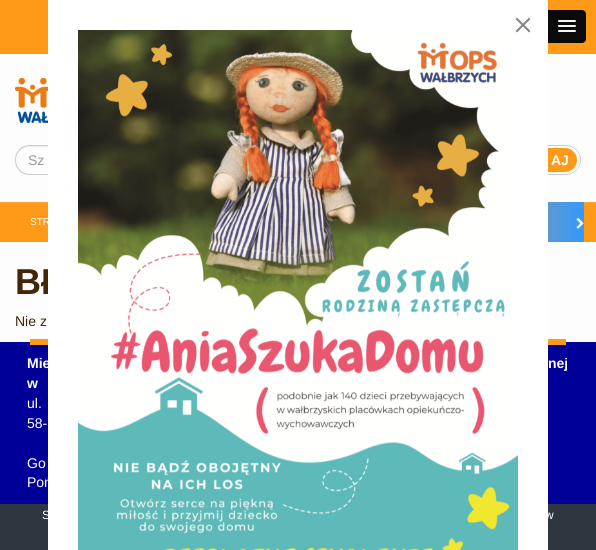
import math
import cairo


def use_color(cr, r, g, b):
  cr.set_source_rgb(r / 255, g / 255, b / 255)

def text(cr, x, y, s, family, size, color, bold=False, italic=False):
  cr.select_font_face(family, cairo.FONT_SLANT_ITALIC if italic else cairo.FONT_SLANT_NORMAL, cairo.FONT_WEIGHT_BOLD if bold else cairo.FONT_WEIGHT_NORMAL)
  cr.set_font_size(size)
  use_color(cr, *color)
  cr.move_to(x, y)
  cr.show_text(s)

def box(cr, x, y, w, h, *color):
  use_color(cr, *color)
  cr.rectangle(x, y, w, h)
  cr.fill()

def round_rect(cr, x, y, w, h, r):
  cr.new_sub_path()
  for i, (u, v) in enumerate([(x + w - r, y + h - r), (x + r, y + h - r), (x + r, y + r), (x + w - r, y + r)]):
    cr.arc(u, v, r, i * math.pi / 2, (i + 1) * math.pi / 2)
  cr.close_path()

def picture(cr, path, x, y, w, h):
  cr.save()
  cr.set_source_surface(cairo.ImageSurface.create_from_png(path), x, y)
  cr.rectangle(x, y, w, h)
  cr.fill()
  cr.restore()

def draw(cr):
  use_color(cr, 253, 253, 253)
  cr.paint()
  box(cr, 0, 0, 596, 54, 255, 154, 24)
  use_color(cr, 10, 10, 10)
  round_rect(cr, 494, 10, 92, 33, 4)
  cr.fill()
  use_color(cr, 245, 245, 245)
  round_rect(cr, 558, 20, 18, 2, 1)
  cr.fill()
  round_rect(cr, 558, 25, 18, 2, 1)
  cr.fill()
  round_rect(cr, 558, 30, 18, 2, 1)
  cr.fill()
  picture(cr, "img_03.png", 15, 78, 33, 45)
  use_color(cr, 236, 236, 236)
  cr.new_path()
  cr.move_to(30, 147)
  cr.line_to(505, 147)
  cr.line_to(505, 146)
  cr.line_to(30, 146)
  cr.curve_to(22, 146, 16, 153, 16, 160)
  cr.curve_to(16, 153, 22, 147, 30, 147)
  cr.close_path()
  cr.fill()
  use_color(cr, 204, 204, 204)
  cr.set_fill_rule(cairo.FILL_RULE_EVEN_ODD)
  cr.new_path()
  cr.move_to(30, 145)
  cr.line_to(505, 145)
  cr.line_to(505, 175)
  cr.line_to(30, 175)
  cr.curve_to(10, 175, 10, 145, 30, 145)
  cr.close_path()
  cr.move_to(30, 146)
  cr.line_to(505, 146)
  cr.line_to(505, 174)
  cr.line_to(30, 174)
  cr.curve_to(22, 174, 16, 168, 16, 160)
  cr.curve_to(16, 152, 22, 146, 30, 146)
  cr.close_path()
  cr.fill()
  cr.new_path()
  cr.move_to(505, 145)
  cr.line_to(566, 145)
  cr.curve_to(574, 145, 581, 152, 581, 160)
  cr.curve_to(581, 168, 574, 175, 566, 175)
  cr.line_to(505, 175)
  cr.close_path()
  cr.move_to(505, 146)
  cr.line_to(566, 146)
  cr.curve_to(574, 146, 580, 152, 580, 160)
  cr.curve_to(580, 168, 574, 174, 566, 174)
  cr.line_to(505, 174)
  cr.close_path()
  cr.fill()
  use_color(cr, 255, 154, 24)
  round_rect(cr, 505, 148, 72, 24, 12)
  cr.fill()
  box(cr, 0, 203, 596, 39, 255, 154, 24)
  box(cr, 0, 202, 596, 1, 255, 164, 47)
  gradient = cairo.LinearGradient(405, 222, 584, 222)
  gradient.add_color_stop_rgba(0, 0.2, 0.6, 1, 0)
  gradient.add_color_stop_rgba(1, 0.2, 0.6, 1, 1)
  cr.set_source(gradient)
  cr.rectangle(548, 202, 36, 40)
  cr.fill()
  picture(cr, "img_04.png", 576, 218, 8, 11)
  box(cr, 0, 342, 596, 162, 0, 0, 153)
  box(cr, 30, 339, 536, 6, 255, 154, 24)
  box(cr, 0, 504, 596, 46, 46, 54, 63)
  text(cr, 28, 165, "Sz", "Liberation Sans", 14, (153, 153, 153))
  text(cr, 551, 165, "AJ", "Liberation Sans", 14, (255, 255, 255), bold=True)
  text(cr, 30, 225, "STR", "Liberation Sans", 10, (255, 255, 255))
  text(cr, 15, 294, "BŁ", "Liberation Sans", 36, (65, 39, 7), bold=True)
  box(cr, 48, 0, 500, 550, 255, 255, 255)
  picture(cr, "img_02.png", 78, 30, 440, 520)
  picture(cr, "img_01.png", 515, 17, 16, 16)
  text(cr, 15, 326, "Nie z", "Liberation Sans", 14, (65, 39, 7))
  text(cr, 27, 368, "Mie", "Liberation Sans", 14, (255, 255, 255), bold=True)
  text(cr, 27, 388, "w", "Liberation Sans", 14, (255, 255, 255), bold=True)
  text(cr, 27, 408, "ul.", "Liberation Sans", 14, (255, 255, 255))
  text(cr, 27, 428, "58-", "Liberation Sans", 14, (255, 255, 255))
  text(cr, 27, 468, "Go", "Liberation Sans", 14, (255, 255, 255))
  text(cr, 27, 487, "Pon", "Liberation Sans", 14, (255, 255, 255))
  text(cr, 548, 368, "nej", "Liberation Sans", 14, (255, 255, 255), bold=True)
  text(cr, 42, 519, "S", "Liberation Sans", 12, (255, 255, 255))
  text(cr, 545, 519, "w", "Liberation Sans", 12, (255, 255, 255))


surface = cairo.ImageSurface(cairo.FORMAT_RGB24, 596, 550)
cr = cairo.Context(surface)
options = cairo.FontOptions()
options.set_hint_metrics(cairo.HINT_METRICS_OFF)
options.set_hint_style(cairo.HINT_STYLE_NONE)
cr.set_font_options(options)
cr.set_miter_limit(4)
draw(cr)
surface.write_to_png("out.png")
